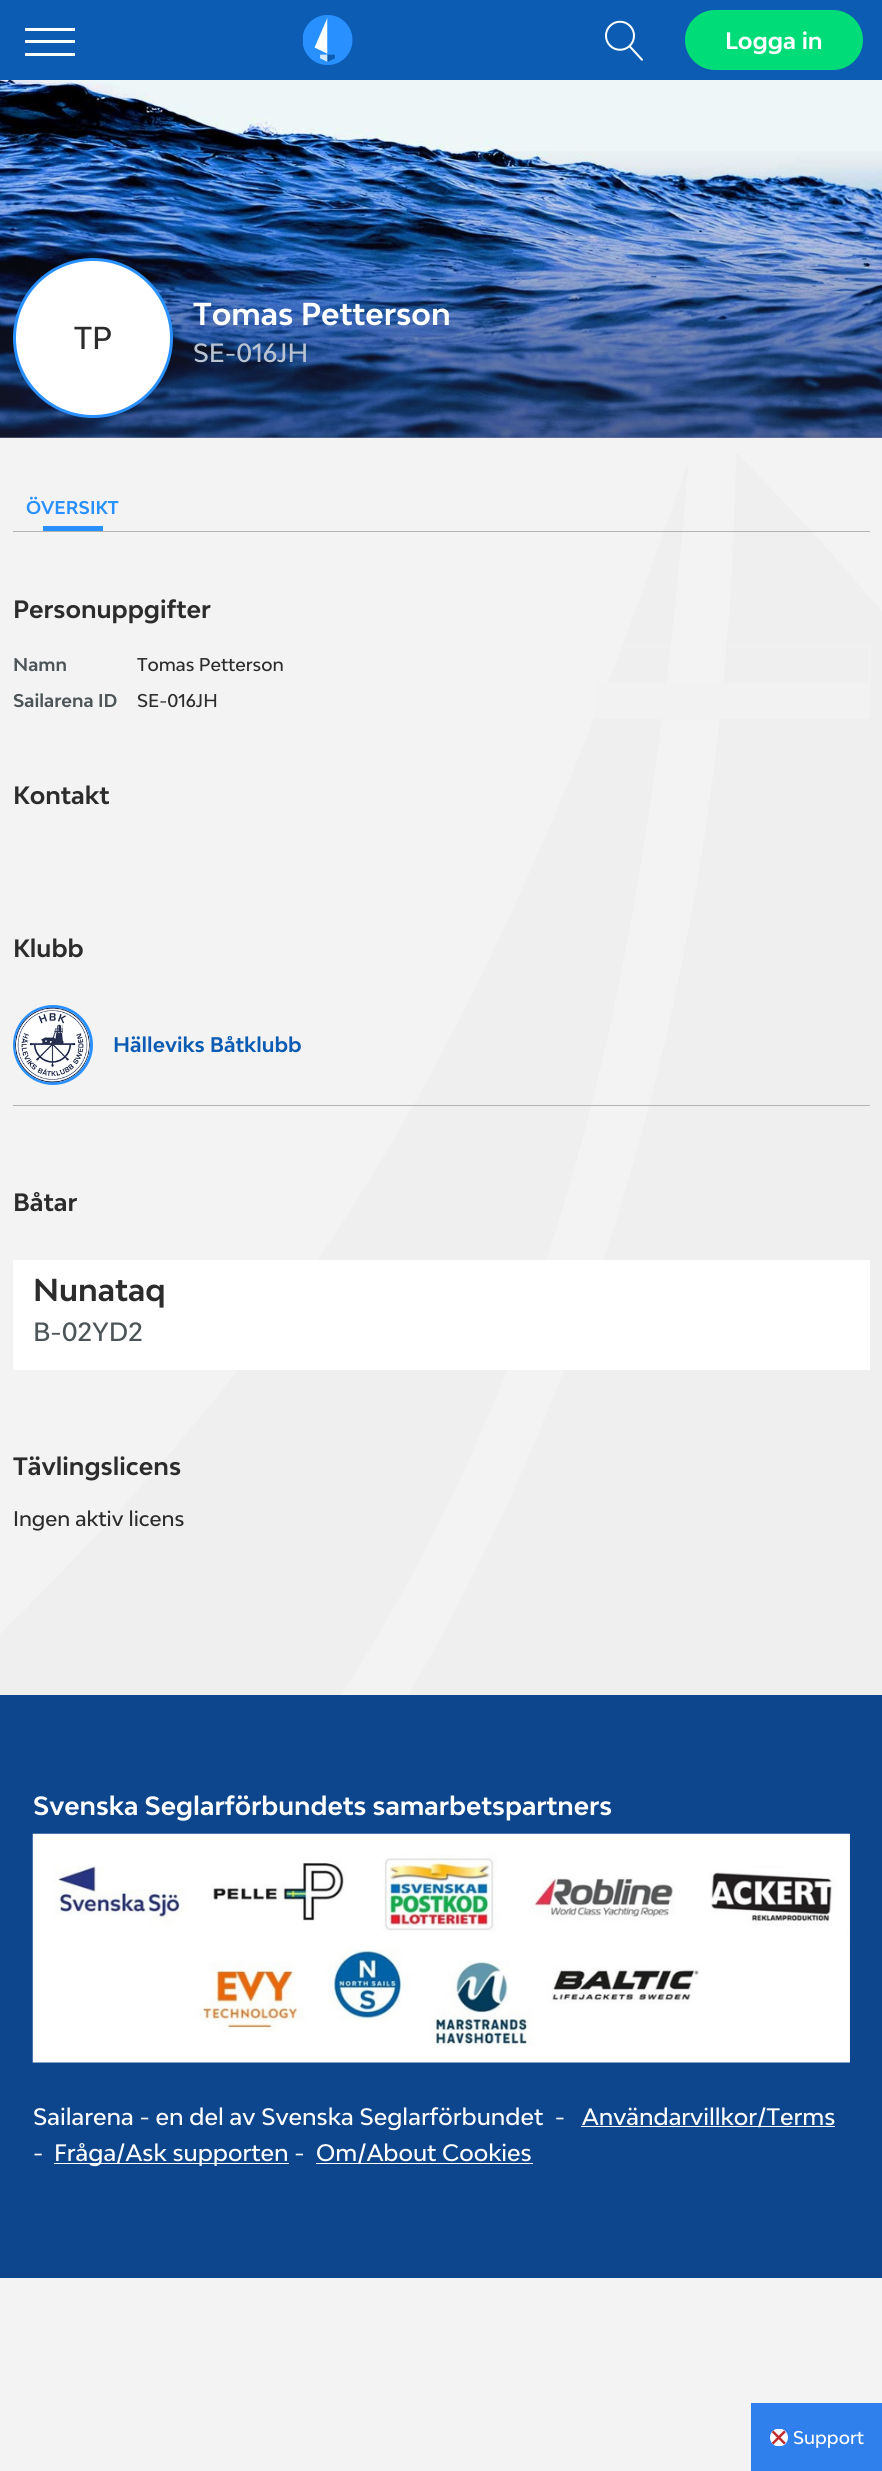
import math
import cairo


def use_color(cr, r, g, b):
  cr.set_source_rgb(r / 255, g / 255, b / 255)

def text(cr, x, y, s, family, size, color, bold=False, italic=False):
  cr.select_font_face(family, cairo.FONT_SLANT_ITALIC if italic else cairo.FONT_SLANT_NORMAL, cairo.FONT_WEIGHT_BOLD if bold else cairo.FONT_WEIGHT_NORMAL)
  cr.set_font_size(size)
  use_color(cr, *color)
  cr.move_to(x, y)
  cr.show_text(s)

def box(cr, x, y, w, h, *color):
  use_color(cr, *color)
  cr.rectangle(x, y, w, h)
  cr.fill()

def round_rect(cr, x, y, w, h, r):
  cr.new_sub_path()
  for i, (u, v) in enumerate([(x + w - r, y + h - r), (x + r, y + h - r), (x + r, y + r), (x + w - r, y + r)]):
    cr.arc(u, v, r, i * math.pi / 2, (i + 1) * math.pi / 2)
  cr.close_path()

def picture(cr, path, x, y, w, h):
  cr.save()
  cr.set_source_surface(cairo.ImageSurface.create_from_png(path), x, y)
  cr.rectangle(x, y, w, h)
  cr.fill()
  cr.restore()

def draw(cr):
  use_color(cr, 243, 243, 243)
  cr.paint()
  picture(cr, "img_01.png", 0, 454, 882, 1241)
  box(cr, 0, 0, 882, 80, 11, 92, 178)
  box(cr, 25, 40, 50, 3, 255, 255, 255)
  box(cr, 25, 28, 50, 3, 255, 255, 255)
  box(cr, 25, 53, 50, 3, 255, 255, 255)
  picture(cr, "img_02.png", 303, 15, 50, 50)
  picture(cr, "img_03.png", 605, 20, 38, 41)
  use_color(cr, 0, 220, 120)
  round_rect(cr, 685, 10, 178, 60, 30)
  cr.fill()
  picture(cr, "img_04.png", 0, 80, 882, 358)
  gradient = cairo.LinearGradient(441, 0, 441, 438)
  gradient.add_color_stop_rgba(0, 0.114, 0.149, 0.278, 0)
  gradient.add_color_stop_rgba(0.31, 0.114, 0.149, 0.278, 0)
  gradient.add_color_stop_rgba(0.57, 0.114, 0.149, 0.278, 0.16)
  gradient.add_color_stop_rgba(0.74, 0.114, 0.149, 0.278, 0.37)
  gradient.add_color_stop_rgba(1, 0.114, 0.149, 0.278, 0.58)
  cr.set_source(gradient)
  cr.rectangle(0, 151, 882, 287)
  cr.fill()
  use_color(cr, 255, 255, 255)
  cr.arc(93, 338, 78.5, 0, 2 * math.pi)
  cr.fill_preserve()
  use_color(cr, 41, 144, 255)
  cr.set_line_width(3)
  cr.stroke()
  box(cr, 13, 531, 857, 1, 179, 179, 179)
  box(cr, 43, 526, 60, 5, 41, 144, 255)
  cr.rectangle(13.5, 646.5, 856, 72)
  use_color(cr, 242, 242, 242)
  cr.set_line_width(1)
  cr.stroke()
  box(cr, 595, 683, 274, 35, 242, 242, 242)
  box(cr, 13, 1105, 857, 1, 179, 179, 179)
  use_color(cr, 255, 255, 255)
  cr.arc(53, 1045, 38.5, 0, 2 * math.pi)
  cr.fill_preserve()
  use_color(cr, 41, 144, 255)
  cr.set_line_width(3)
  cr.stroke()
  picture(cr, "img_05.png", 15, 1007, 75, 76)
  box(cr, 13, 1260, 857, 110, 255, 255, 255)
  box(cr, 0, 1695, 882, 583, 13, 70, 140)
  picture(cr, "img_06.png", 32, 1833, 818, 230)
  box(cr, 581, 2126, 254, 1, 255, 255, 255)
  box(cr, 54, 2163, 235, 1, 255, 255, 255)
  box(cr, 316, 2163, 217, 1, 255, 255, 255)
  box(cr, 751, 2403, 131, 68, 47, 128, 237)
  picture(cr, "img_07.png", 770, 2429, 18, 17)
  text(cr, 725, 49, "Logga in", "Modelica", 22.5, (255, 255, 255), bold=True)
  text(cr, 74, 349, "TP", "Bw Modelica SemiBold", 30, (44, 44, 44))
  text(cr, 193, 325, "Tomas Petterson", "Modelica", 30, (255, 255, 255), bold=True)
  text(cr, 193, 362, "SE-016JH", "Bw Modelica SemiBold", 25, (185, 195, 210))
  text(cr, 26, 514, "ÖVERSIKT", "Modelica", 17.5, (41, 144, 255), bold=True)
  text(cr, 13, 618, "Personuppgifter", "Modelica", 23.75, (44, 44, 44), bold=True)
  text(cr, 13, 671, "Namn", "Modelica", 17.5, (77, 85, 89), bold=True)
  text(cr, 137, 671, "Tomas Petterson", "Bw Modelica SemiBold", 17.5, (44, 44, 44))
  text(cr, 13, 707, "Sailarena ID", "Modelica", 17.5, (77, 85, 89), bold=True)
  text(cr, 137, 707, "SE-016JH", "Bw Modelica SemiBold", 17.5, (44, 44, 44))
  text(cr, 13, 804, "Kontakt", "Modelica", 23.75, (44, 44, 44), bold=True)
  text(cr, 13, 957, "Klubb", "Modelica", 23.75, (44, 44, 44), bold=True)
  text(cr, 113, 1052, "Hälleviks Båtklubb", "Modelica", 20, (11, 92, 178), bold=True)
  text(cr, 13, 1211, "Båtar", "Modelica", 23.75, (44, 44, 44), bold=True)
  text(cr, 33, 1301, "Nunataq", "Modelica", 30, (44, 44, 44), bold=True)
  text(cr, 33, 1341, "B-02YD2", "Bw Modelica SemiBold", 25, (77, 85, 89))
  text(cr, 13, 1475, "Tävlingslicens", "Modelica", 23.75, (44, 44, 44), bold=True)
  text(cr, 13, 1526, "Ingen aktiv licens", "Bw Modelica SemiBold", 20, (44, 44, 44))
  text(cr, 33, 1815, "Svenska Seglarförbundets samarbetspartners", "Modelica", 25, (255, 255, 255), bold=True)
  text(cr, 33, 2125, "Sailarena - en del av Svenska Seglarförbundet  -", "Bw Modelica SemiBold", 22.5, (255, 255, 255))
  text(cr, 582, 2125, "Användarvillkor/Terms", "Bw Modelica SemiBold", 22.5, (255, 255, 255))
  text(cr, 33, 2161, "-", "Bw Modelica SemiBold", 22.5, (255, 255, 255))
  text(cr, 54, 2161, "Fråga/Ask supporten -", "Bw Modelica SemiBold", 22.5, (255, 255, 255))
  text(cr, 316, 2161, "Om/About Cookies", "Bw Modelica SemiBold", 22.5, (255, 255, 255))
  text(cr, 793, 2444, "Support", "Bw Modelica SemiBold", 17.5, (255, 255, 255))


surface = cairo.ImageSurface(cairo.FORMAT_RGB24, 882, 2471)
cr = cairo.Context(surface)
options = cairo.FontOptions()
options.set_hint_metrics(cairo.HINT_METRICS_OFF)
options.set_hint_style(cairo.HINT_STYLE_NONE)
cr.set_font_options(options)
cr.set_miter_limit(4)
draw(cr)
surface.write_to_png("out.png")
